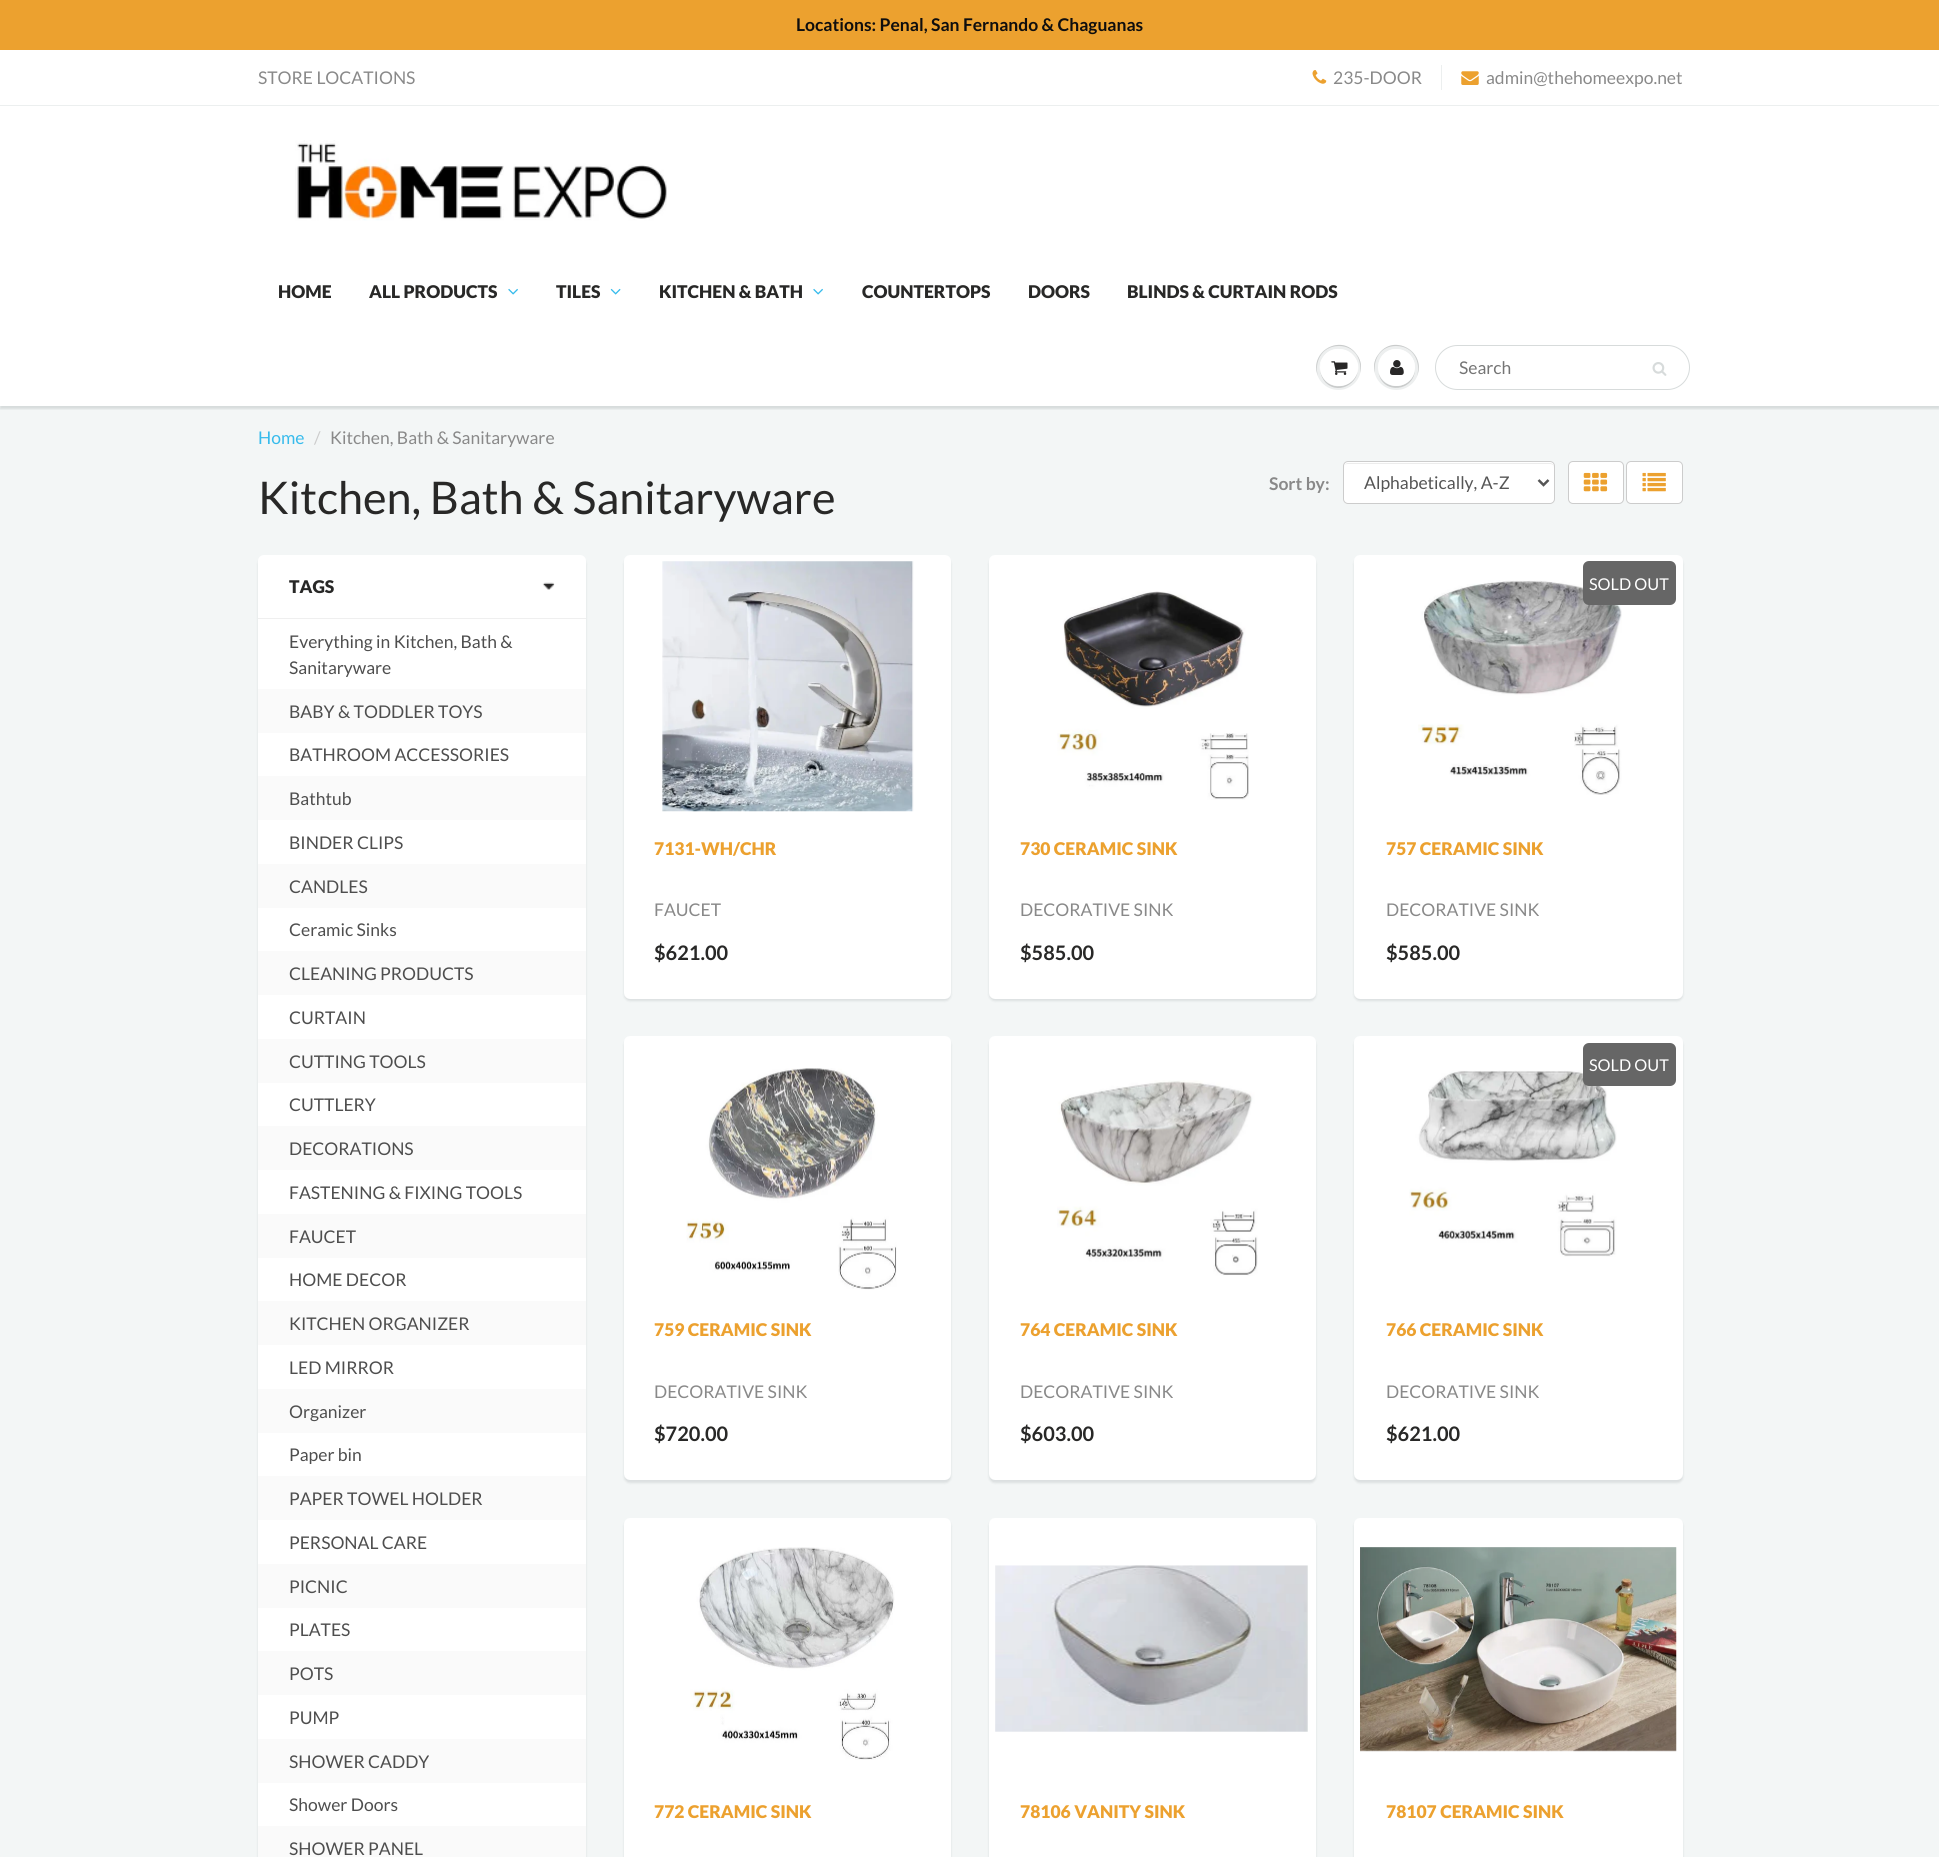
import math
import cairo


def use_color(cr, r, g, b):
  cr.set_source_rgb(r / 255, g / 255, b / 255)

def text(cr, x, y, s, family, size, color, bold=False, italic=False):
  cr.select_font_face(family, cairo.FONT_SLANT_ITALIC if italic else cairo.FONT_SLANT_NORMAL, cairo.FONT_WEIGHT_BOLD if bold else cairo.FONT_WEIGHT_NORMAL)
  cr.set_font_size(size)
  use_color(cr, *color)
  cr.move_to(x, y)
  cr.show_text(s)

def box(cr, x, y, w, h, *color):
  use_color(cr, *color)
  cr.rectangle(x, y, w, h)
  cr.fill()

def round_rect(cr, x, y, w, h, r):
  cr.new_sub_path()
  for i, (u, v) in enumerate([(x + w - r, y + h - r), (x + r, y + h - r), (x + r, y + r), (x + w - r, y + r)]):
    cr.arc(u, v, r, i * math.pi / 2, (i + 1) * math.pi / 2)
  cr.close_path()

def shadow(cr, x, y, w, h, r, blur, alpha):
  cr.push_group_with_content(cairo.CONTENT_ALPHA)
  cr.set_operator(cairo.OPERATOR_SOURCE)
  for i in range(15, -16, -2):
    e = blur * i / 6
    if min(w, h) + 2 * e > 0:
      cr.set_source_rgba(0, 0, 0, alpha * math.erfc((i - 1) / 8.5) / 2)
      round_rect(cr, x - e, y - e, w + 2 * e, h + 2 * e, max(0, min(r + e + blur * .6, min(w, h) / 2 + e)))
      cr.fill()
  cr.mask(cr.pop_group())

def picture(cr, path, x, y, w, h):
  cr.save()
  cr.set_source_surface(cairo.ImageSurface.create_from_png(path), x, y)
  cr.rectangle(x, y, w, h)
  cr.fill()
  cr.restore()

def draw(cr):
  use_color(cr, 255, 255, 255)
  cr.paint()
  box(cr, 0, 0, 1939, 50, 236, 161, 47)
  picture(cr, "img_01.png", 1312, 70, 15, 14)
  box(cr, 1441, 65, 1, 25, 236, 239, 239)
  picture(cr, "img_02.png", 1461, 71, 18, 14)
  box(cr, 0, 406, 1939, 1451, 243, 246, 246)
  cr.save()
  cr.rectangle(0, 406, 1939, 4)
  cr.clip()
  use_color(cr, 11, 25, 28)
  shadow(cr, 0, 108, 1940, 301, 0, 1, 0.12)
  cr.restore()
  box(cr, 0, 105, 1939, 1, 236, 239, 239)
  picture(cr, "img_03.png", 295, 140, 372, 81)
  picture(cr, "img_04.png", 508, 288, 10, 7)
  picture(cr, "img_05.png", 610, 288, 11, 7)
  picture(cr, "img_04.png", 813, 288, 10, 7)
  use_color(cr, 237, 239, 239)
  cr.arc(1338.5, 367.5, 22.5, 0, 2 * math.pi)
  cr.fill()
  use_color(cr, 201, 203, 203)
  cr.new_path()
  cr.move_to(1339, 346)
  cr.curve_to(1355, 346, 1362, 360, 1360, 373)
  cr.curve_to(1362, 367, 1361, 360, 1357, 355)
  cr.curve_to(1342, 332, 1308, 352, 1318, 376)
  cr.curve_to(1314, 363, 1321, 346, 1339, 346)
  cr.close_path()
  cr.fill()
  cr.new_path()
  cr.move_to(1320, 368)
  cr.curve_to(1320, 373.5, 1322, 378.5, 1325.5, 382.5)
  cr.curve_to(1340, 397, 1364, 380.5, 1356.5, 362)
  cr.curve_to(1362, 380, 1339.5, 394.5, 1325.5, 381)
  cr.curve_to(1322.5, 377.5, 1320, 373, 1320, 368)
  cr.close_path()
  cr.fill()
  use_color(cr, 255, 255, 255)
  round_rect(cr, 1320, 349, 38, 37, 18.5)
  cr.fill()
  cr.new_path()
  cr.move_to(1339, 350)
  cr.curve_to(1354, 350, 1360, 365, 1356, 376)
  cr.curve_to(1367, 356, 1336, 338, 1323, 357)
  cr.curve_to(1320, 361, 1319, 366, 1320, 371)
  cr.curve_to(1319, 361, 1326, 350, 1339, 350)
  cr.close_path()
  cr.fill()
  picture(cr, "img_06.png", 1331, 361, 17, 14)
  use_color(cr, 237, 239, 239)
  cr.arc(1396.5, 367.5, 22.5, 0, 2 * math.pi)
  cr.fill()
  use_color(cr, 201, 203, 203)
  cr.new_path()
  cr.move_to(1396, 346)
  cr.curve_to(1414, 346, 1421, 363, 1417, 376)
  cr.curve_to(1427, 352, 1393, 332, 1378, 355)
  cr.curve_to(1374, 360, 1373, 367, 1375, 373)
  cr.curve_to(1373, 360, 1380, 346, 1396, 346)
  cr.close_path()
  cr.fill()
  cr.new_path()
  cr.move_to(1378.5, 373)
  cr.curve_to(1382.5, 395, 1415.5, 392, 1415, 368)
  cr.curve_to(1414.5, 389, 1384.5, 393, 1378.5, 373)
  cr.close_path()
  cr.fill()
  use_color(cr, 255, 255, 255)
  cr.arc(1396.5, 367.5, 18.5, 0, 2 * math.pi)
  cr.fill()
  cr.new_path()
  cr.move_to(1396, 350)
  cr.curve_to(1409.5, 350, 1415.5, 361, 1414.5, 371)
  cr.curve_to(1418.5, 351.5, 1392.5, 340.5, 1381, 357)
  cr.curve_to(1379, 360.5, 1378, 364.5, 1378, 368)
  cr.curve_to(1378.5, 359, 1384.5, 350, 1396, 350)
  cr.close_path()
  cr.fill()
  picture(cr, "img_07.png", 1390, 360, 14, 15)
  round_rect(cr, 1435.5, 345.5, 254, 44, 22)
  use_color(cr, 215, 219, 219)
  cr.set_line_width(1)
  cr.stroke()
  picture(cr, "img_08.png", 1652, 362, 15, 14)
  use_color(cr, 11, 25, 28)
  shadow(cr, 258, 558, 328, 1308, 6, 1, 0.1)
  use_color(cr, 255, 255, 255)
  round_rect(cr, 258, 555, 328, 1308, 6)
  cr.fill()
  box(cr, 258, 618, 328, 1, 239, 239, 239)
  picture(cr, "img_09.png", 542, 582, 13, 8)
  box(cr, 258, 689, 328, 44, 250, 250, 250)
  box(cr, 258, 776, 328, 44, 250, 250, 250)
  box(cr, 258, 864, 328, 44, 250, 250, 250)
  box(cr, 258, 951, 328, 44, 250, 250, 250)
  box(cr, 258, 1039, 328, 44, 250, 250, 250)
  box(cr, 258, 1126, 328, 44, 250, 250, 250)
  box(cr, 258, 1214, 328, 44, 250, 250, 250)
  box(cr, 258, 1301, 328, 44, 250, 250, 250)
  box(cr, 258, 1389, 328, 44, 250, 250, 250)
  box(cr, 258, 1476, 328, 44, 250, 250, 250)
  box(cr, 258, 1564, 328, 44, 250, 250, 250)
  box(cr, 258, 1651, 328, 44, 250, 250, 250)
  box(cr, 258, 1739, 328, 44, 250, 250, 250)
  box(cr, 258, 1826, 328, 31, 250, 250, 250)
  use_color(cr, 255, 255, 255)
  round_rect(cr, 1343, 461, 212, 43, 5)
  cr.fill()
  use_color(cr, 236, 236, 236)
  cr.new_path()
  cr.move_to(1348, 464)
  cr.line_to(1550, 464)
  cr.curve_to(1552, 464, 1554, 465, 1554, 468)
  cr.line_to(1554, 467)
  cr.curve_to(1554, 465, 1552, 463, 1550, 463)
  cr.line_to(1348, 463)
  cr.curve_to(1346, 463, 1344, 465, 1344, 467)
  cr.line_to(1344, 468)
  cr.curve_to(1344, 465, 1345, 464, 1348, 464)
  cr.close_path()
  cr.fill()
  round_rect(cr, 1343.5, 461.5, 211, 42, 4.5)
  use_color(cr, 204, 204, 204)
  cr.stroke()
  cr.new_path()
  cr.move_to(1538.5, 480)
  cr.line_to(1543.5, 485)
  cr.line_to(1548.5, 480)
  use_color(cr, 85, 85, 85)
  cr.set_line_width(2.5)
  cr.stroke()
  use_color(cr, 255, 255, 255)
  round_rect(cr, 1568.5, 461.5, 55, 42, 4.5)
  cr.fill_preserve()
  use_color(cr, 204, 204, 204)
  cr.set_line_width(1)
  cr.stroke()
  picture(cr, "img_10.png", 1583, 472, 25, 20)
  use_color(cr, 255, 255, 255)
  round_rect(cr, 1626.5, 461.5, 56, 42, 4.5)
  cr.fill_preserve()
  use_color(cr, 204, 204, 204)
  cr.stroke()
  picture(cr, "img_11.png", 1642, 472, 24, 20)
  use_color(cr, 11, 25, 28)
  shadow(cr, 624, 558, 327, 443, 6, 1, 0.1)
  use_color(cr, 255, 255, 255)
  round_rect(cr, 627, 558, 321, 438, 3)
  cr.fill_preserve()
  cr.set_line_width(6)
  cr.stroke()
  picture(cr, "img_12.png", 662, 561, 252, 251)
  use_color(cr, 11, 25, 28)
  shadow(cr, 989, 558, 327, 443, 6, 1, 0.1)
  use_color(cr, 255, 255, 255)
  round_rect(cr, 992, 558, 321, 438, 3)
  cr.fill_preserve()
  cr.stroke()
  picture(cr, "img_13.png", 1057, 591, 192, 209)
  use_color(cr, 11, 25, 28)
  shadow(cr, 1354, 558, 329, 443, 6, 1, 0.1)
  use_color(cr, 255, 255, 255)
  round_rect(cr, 1357, 558, 323, 438, 3)
  cr.fill_preserve()
  cr.stroke()
  picture(cr, "img_14.png", 1418, 580, 204, 215)
  use_color(cr, 102, 102, 102)
  round_rect(cr, 1583, 561, 93, 44, 6)
  cr.fill()
  use_color(cr, 11, 25, 28)
  shadow(cr, 624, 1039, 327, 444, 6, 1, 0.1)
  use_color(cr, 255, 255, 255)
  round_rect(cr, 627, 1039, 321, 438, 3)
  cr.fill_preserve()
  cr.stroke()
  picture(cr, "img_15.png", 686, 1068, 211, 222)
  use_color(cr, 11, 25, 28)
  shadow(cr, 989, 1039, 327, 444, 6, 1, 0.1)
  use_color(cr, 255, 255, 255)
  round_rect(cr, 992, 1039, 321, 438, 3)
  cr.fill_preserve()
  cr.stroke()
  picture(cr, "img_16.png", 1057, 1080, 201, 196)
  use_color(cr, 11, 25, 28)
  shadow(cr, 1354, 1039, 329, 444, 6, 1, 0.1)
  use_color(cr, 255, 255, 255)
  round_rect(cr, 1357, 1039, 323, 438, 3)
  cr.fill_preserve()
  cr.stroke()
  picture(cr, "img_17.png", 1409, 1070, 208, 187)
  use_color(cr, 102, 102, 102)
  round_rect(cr, 1583, 1043, 93, 43, 6)
  cr.fill()
  use_color(cr, 11, 25, 28)
  shadow(cr, 624, 1520, 327, 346, 6, 1, 0.1)
  use_color(cr, 255, 255, 255)
  round_rect(cr, 627, 1521, 321, 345, 3)
  cr.fill_preserve()
  cr.stroke()
  picture(cr, "img_18.png", 690, 1547, 205, 213)
  use_color(cr, 11, 25, 28)
  shadow(cr, 989, 1520, 327, 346, 6, 1, 0.1)
  use_color(cr, 255, 255, 255)
  round_rect(cr, 992, 1521, 321, 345, 3)
  cr.fill_preserve()
  cr.stroke()
  picture(cr, "img_19.png", 995, 1565, 313, 167)
  use_color(cr, 11, 25, 28)
  shadow(cr, 1354, 1520, 329, 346, 6, 1, 0.1)
  use_color(cr, 255, 255, 255)
  round_rect(cr, 1357, 1521, 323, 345, 3)
  cr.fill_preserve()
  cr.stroke()
  picture(cr, "img_20.png", 1360, 1547, 317, 205)
  text(cr, 796, 31, "Locations: Penal, San Fernando & Chaguanas", "Lato", 17.5, (15, 14, 14), bold=True)
  text(cr, 258, 84, "STORE LOCATIONS", "Lato", 17.5, (137, 137, 137))
  text(cr, 1333, 84, "235-DOOR", "Lato", 17.5, (137, 137, 137))
  text(cr, 1486, 84, "admin@thehomeexpo.net", "Lato", 17.5, (137, 137, 137))
  text(cr, 278, 298, "HOME", "Lato Black", 17.5, (40, 40, 39))
  text(cr, 369, 298, "ALL PRODUCTS", "Lato Black", 17.5, (40, 40, 39))
  text(cr, 556, 298, "TILES", "Lato Black", 17.5, (40, 40, 39))
  text(cr, 659, 298, "KITCHEN & BATH", "Lato Black", 17.5, (40, 40, 39))
  text(cr, 862, 298, "COUNTERTOPS", "Lato Black", 17.5, (40, 40, 39))
  text(cr, 1028, 298, "DOORS", "Lato Black", 17.5, (40, 40, 39))
  text(cr, 1127, 298, "BLINDS & CURTAIN RODS", "Lato Black", 17.5, (40, 40, 39))
  text(cr, 1459, 374, "Search", "Lato", 17.5, (117, 117, 117))
  text(cr, 258, 444, "Home", "Lato", 17.5, (55, 187, 236))
  text(cr, 314, 444, "/", "Lato", 17.5, (204, 204, 204))
  text(cr, 330, 444, "Kitchen, Bath & Sanitaryware", "Lato", 17.5, (137, 137, 137))
  text(cr, 289, 593, "TAGS", "Lato Black", 17.5, (40, 40, 39))
  text(cr, 289, 648, "Everything in Kitchen, Bath &", "Lato", 17.5, (78, 78, 78))
  text(cr, 289, 674, "Sanitaryware", "Lato", 17.5, (78, 78, 78))
  text(cr, 289, 718, "BABY & TODDLER TOYS", "Lato", 17.5, (78, 78, 78))
  text(cr, 289, 761, "BATHROOM ACCESSORIES", "Lato", 17.5, (78, 78, 78))
  text(cr, 289, 805, "Bathtub", "Lato", 17.5, (78, 78, 78))
  text(cr, 289, 849, "BINDER CLIPS", "Lato", 17.5, (78, 78, 78))
  text(cr, 289, 893, "CANDLES", "Lato", 17.5, (78, 78, 78))
  text(cr, 289, 936, "Ceramic Sinks", "Lato", 17.5, (78, 78, 78))
  text(cr, 289, 980, "CLEANING PRODUCTS", "Lato", 17.5, (78, 78, 78))
  text(cr, 289, 1024, "CURTAIN", "Lato", 17.5, (78, 78, 78))
  text(cr, 289, 1068, "CUTTING TOOLS", "Lato", 17.5, (78, 78, 78))
  text(cr, 289, 1111, "CUTTLERY", "Lato", 17.5, (78, 78, 78))
  text(cr, 289, 1155, "DECORATIONS", "Lato", 17.5, (78, 78, 78))
  text(cr, 289, 1199, "FASTENING & FIXING TOOLS", "Lato", 17.5, (78, 78, 78))
  text(cr, 289, 1243, "FAUCET", "Lato", 17.5, (78, 78, 78))
  text(cr, 289, 1286, "HOME DECOR", "Lato", 17.5, (78, 78, 78))
  text(cr, 289, 1330, "KITCHEN ORGANIZER", "Lato", 17.5, (78, 78, 78))
  text(cr, 289, 1374, "LED MIRROR", "Lato", 17.5, (78, 78, 78))
  text(cr, 289, 1418, "Organizer", "Lato", 17.5, (78, 78, 78))
  text(cr, 289, 1461, "Paper bin", "Lato", 17.5, (78, 78, 78))
  text(cr, 289, 1505, "PAPER TOWEL HOLDER", "Lato", 17.5, (78, 78, 78))
  text(cr, 289, 1549, "PERSONAL CARE", "Lato", 17.5, (78, 78, 78))
  text(cr, 289, 1593, "PICNIC", "Lato", 17.5, (78, 78, 78))
  text(cr, 289, 1636, "PLATES", "Lato", 17.5, (78, 78, 78))
  text(cr, 289, 1680, "POTS", "Lato", 17.5, (78, 78, 78))
  text(cr, 289, 1724, "PUMP", "Lato", 17.5, (78, 78, 78))
  text(cr, 289, 1768, "SHOWER CADDY", "Lato", 17.5, (78, 78, 78))
  text(cr, 289, 1811, "Shower Doors", "Lato", 17.5, (78, 78, 78))
  text(cr, 289, 1855, "SHOWER PANEL", "Lato", 17.5, (78, 78, 78))
  text(cr, 1269, 490, "Sort by:", "Lato", 17.5, (137, 137, 137), bold=True)
  text(cr, 1364, 489, "Alphabetically, A-Z", "Lato", 17.5, (85, 85, 85))
  text(cr, 654, 855, "7131-WH/CHR", "Lato Black", 17.5, (236, 161, 47))
  text(cr, 654, 916, "FAUCET", "Lato", 17.5, (137, 137, 137))
  text(cr, 654, 960, "$621.00", "Lato", 20, (40, 40, 39), bold=True)
  text(cr, 1020, 855, "730 CERAMIC SINK", "Lato Black", 17.5, (236, 161, 47))
  text(cr, 1020, 916, "DECORATIVE SINK", "Lato", 17.5, (137, 137, 137))
  text(cr, 1020, 960, "$585.00", "Lato", 20, (40, 40, 39), bold=True)
  text(cr, 1589, 590, "SOLD OUT", "Lato", 16.25, (255, 255, 255))
  text(cr, 1386, 855, "757 CERAMIC SINK", "Lato Black", 17.5, (236, 161, 47))
  text(cr, 1386, 916, "DECORATIVE SINK", "Lato", 17.5, (137, 137, 137))
  text(cr, 1386, 960, "$585.00", "Lato", 20, (40, 40, 39), bold=True)
  text(cr, 654, 1336, "759 CERAMIC SINK", "Lato Black", 17.5, (236, 161, 47))
  text(cr, 654, 1398, "DECORATIVE SINK", "Lato", 17.5, (137, 137, 137))
  text(cr, 654, 1441, "$720.00", "Lato", 20, (40, 40, 39), bold=True)
  text(cr, 1020, 1336, "764 CERAMIC SINK", "Lato Black", 17.5, (236, 161, 47))
  text(cr, 1020, 1398, "DECORATIVE SINK", "Lato", 17.5, (137, 137, 137))
  text(cr, 1020, 1441, "$603.00", "Lato", 20, (40, 40, 39), bold=True)
  text(cr, 1589, 1071, "SOLD OUT", "Lato", 16.25, (255, 255, 255))
  text(cr, 1386, 1336, "766 CERAMIC SINK", "Lato Black", 17.5, (236, 161, 47))
  text(cr, 1386, 1398, "DECORATIVE SINK", "Lato", 17.5, (137, 137, 137))
  text(cr, 1386, 1441, "$621.00", "Lato", 20, (40, 40, 39), bold=True)
  text(cr, 654, 1818, "772 CERAMIC SINK", "Lato Black", 17.5, (236, 161, 47))
  text(cr, 1020, 1818, "78106 VANITY SINK", "Lato Black", 17.5, (236, 161, 47))
  text(cr, 1386, 1818, "78107 CERAMIC SINK", "Lato Black", 17.5, (236, 161, 47))
  text(cr, 258, 514, "Kitchen, Bath & Sanitaryware", "Lato", 45, (40, 40, 39))


surface = cairo.ImageSurface(cairo.FORMAT_RGB24, 1939, 1857)
cr = cairo.Context(surface)
options = cairo.FontOptions()
options.set_hint_metrics(cairo.HINT_METRICS_OFF)
options.set_hint_style(cairo.HINT_STYLE_NONE)
cr.set_font_options(options)
cr.set_miter_limit(4)
draw(cr)
surface.write_to_png("out.png")
